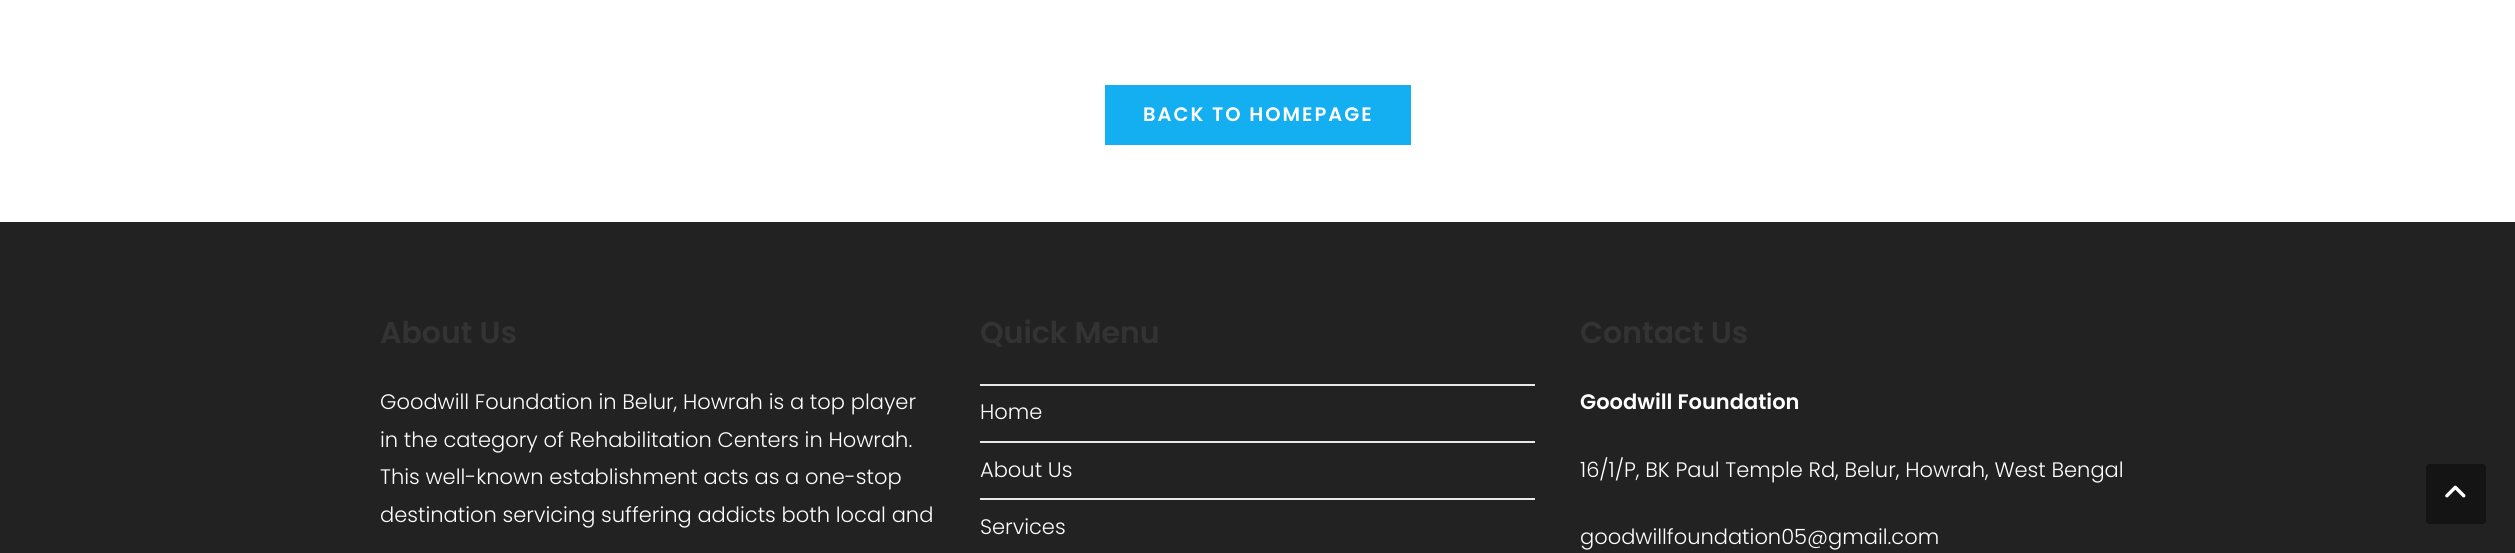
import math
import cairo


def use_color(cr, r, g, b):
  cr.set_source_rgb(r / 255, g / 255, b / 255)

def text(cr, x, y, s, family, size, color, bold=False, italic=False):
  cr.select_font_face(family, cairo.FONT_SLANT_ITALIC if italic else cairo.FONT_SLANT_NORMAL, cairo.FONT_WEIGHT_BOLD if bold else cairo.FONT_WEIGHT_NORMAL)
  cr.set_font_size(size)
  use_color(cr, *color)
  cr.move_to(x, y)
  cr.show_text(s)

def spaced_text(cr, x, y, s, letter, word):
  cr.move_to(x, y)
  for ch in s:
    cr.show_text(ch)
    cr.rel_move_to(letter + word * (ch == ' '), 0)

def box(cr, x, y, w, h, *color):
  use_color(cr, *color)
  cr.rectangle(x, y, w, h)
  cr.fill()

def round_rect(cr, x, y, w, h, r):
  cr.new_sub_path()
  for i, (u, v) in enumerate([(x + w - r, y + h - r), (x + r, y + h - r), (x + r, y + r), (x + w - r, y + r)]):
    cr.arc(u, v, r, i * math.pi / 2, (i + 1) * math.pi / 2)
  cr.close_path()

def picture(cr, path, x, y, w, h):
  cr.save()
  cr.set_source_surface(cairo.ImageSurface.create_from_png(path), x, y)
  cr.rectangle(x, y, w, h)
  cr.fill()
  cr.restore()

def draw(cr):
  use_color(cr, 255, 255, 255)
  cr.paint()
  box(cr, 1105, 85, 306, 60, 19, 175, 240)
  box(cr, 0, 222, 2515, 331, 34, 34, 34)
  box(cr, 980, 384, 555, 2, 233, 233, 233)
  box(cr, 980, 441, 555, 2, 233, 233, 233)
  box(cr, 980, 498, 555, 2, 233, 233, 233)
  use_color(cr, 20, 20, 20)
  round_rect(cr, 2426, 464, 60, 60, 3)
  cr.fill()
  picture(cr, "img_01.png", 2445, 485, 21, 13)
  cr.select_font_face("Poppins SemiBold")
  cr.set_font_size(19.5)
  use_color(cr, 255, 255, 255)
  spaced_text(cr, 1143, 121, "BACK TO HOMEPAGE", 2, 0)
  text(cr, 380, 343, "About Us", "Poppins SemiBold", 30, (51, 51, 51))
  text(cr, 380, 409, "Goodwill Foundation in Belur, Howrah is a top player", "Poppins Light", 21, (255, 255, 255))
  text(cr, 380, 447, "in the category of Rehabilitation Centers in Howrah.", "Poppins Light", 21, (255, 255, 255))
  text(cr, 380, 484, "This well-known establishment acts as a one-stop", "Poppins Light", 21, (255, 255, 255))
  text(cr, 380, 522, "destination servicing suffering addicts both local and", "Poppins Light", 21, (255, 255, 255))
  text(cr, 980, 343, "Quick Menu", "Poppins SemiBold", 30, (51, 51, 51))
  text(cr, 980, 419, "Home", "Poppins Light", 21, (255, 255, 255))
  text(cr, 980, 477, "About Us", "Poppins Light", 21, (255, 255, 255))
  text(cr, 980, 534, "Services", "Poppins Light", 21, (255, 255, 255))
  text(cr, 1580, 343, "Contact Us", "Poppins SemiBold", 30, (51, 51, 51))
  text(cr, 1580, 409, "Goodwill Foundation", "Poppins SemiBold", 21, (255, 255, 255))
  text(cr, 1580, 477, "16/1/P, BK Paul Temple Rd, Belur, Howrah, West Bengal", "Poppins Light", 21, (255, 255, 255))
  text(cr, 1580, 544, "goodwillfoundation05@gmail.com", "Poppins Light", 21, (255, 255, 255))


surface = cairo.ImageSurface(cairo.FORMAT_RGB24, 2515, 553)
cr = cairo.Context(surface)
options = cairo.FontOptions()
options.set_hint_metrics(cairo.HINT_METRICS_OFF)
options.set_hint_style(cairo.HINT_STYLE_NONE)
cr.set_font_options(options)
cr.set_miter_limit(4)
draw(cr)
surface.write_to_png("out.png")
